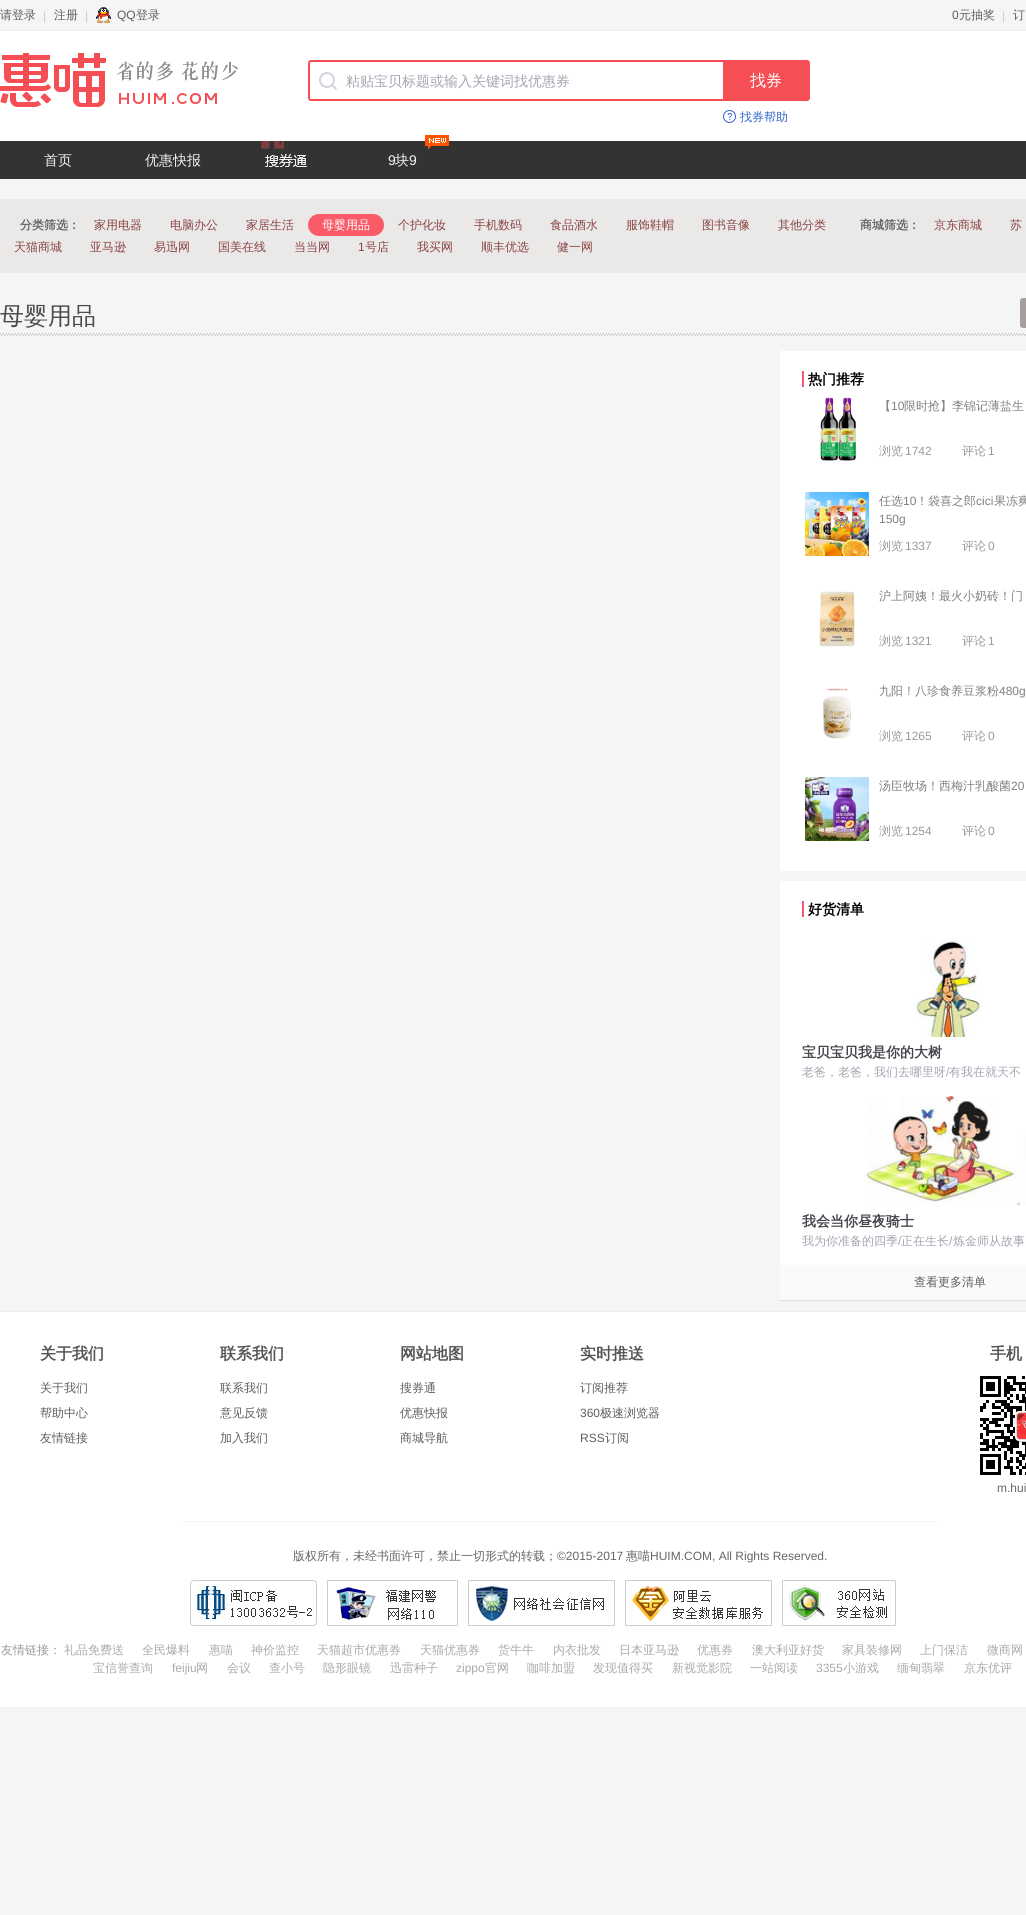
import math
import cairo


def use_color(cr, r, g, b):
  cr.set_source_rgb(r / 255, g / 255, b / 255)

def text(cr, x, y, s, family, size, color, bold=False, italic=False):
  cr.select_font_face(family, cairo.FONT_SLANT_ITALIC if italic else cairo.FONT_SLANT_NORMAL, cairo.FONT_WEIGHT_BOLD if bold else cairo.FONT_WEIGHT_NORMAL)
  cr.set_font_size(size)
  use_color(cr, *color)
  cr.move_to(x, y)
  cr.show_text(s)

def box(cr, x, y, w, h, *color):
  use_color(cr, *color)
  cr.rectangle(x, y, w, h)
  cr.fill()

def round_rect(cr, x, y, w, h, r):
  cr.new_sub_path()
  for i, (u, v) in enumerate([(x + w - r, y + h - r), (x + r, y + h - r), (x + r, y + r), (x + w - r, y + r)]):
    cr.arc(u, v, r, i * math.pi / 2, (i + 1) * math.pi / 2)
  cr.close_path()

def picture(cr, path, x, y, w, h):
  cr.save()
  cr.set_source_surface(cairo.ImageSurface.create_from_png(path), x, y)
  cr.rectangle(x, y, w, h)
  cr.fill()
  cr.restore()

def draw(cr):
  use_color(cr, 245, 245, 245)
  cr.paint()
  box(cr, 0, 30, 1026, 1, 235, 235, 235)
  picture(cr, "img_01.png", 96, 7, 15, 16)
  box(cr, 0, 31, 1026, 110, 255, 255, 255)
  picture(cr, "img_02.png", 0, 53, 238, 54)
  round_rect(cr, 309, 61, 500, 39, 2)
  use_color(cr, 245, 78, 84)
  cr.stroke()
  picture(cr, "img_03.png", 319, 72, 18, 18)
  box(cr, 723, 62, 85, 37, 245, 78, 84)
  picture(cr, "img_04.png", 723, 110, 13, 13)
  box(cr, 0, 141, 1026, 38, 51, 51, 51)
  picture(cr, "img_05.png", 261, 141, 46, 26)
  picture(cr, "img_06.png", 425, 135, 24, 14)
  box(cr, 0, 199, 1026, 74, 235, 232, 232)
  use_color(cr, 249, 92, 104)
  round_rect(cr, 308, 214, 76, 22, 11)
  cr.fill()
  picture(cr, "img_07.png", 0, 333, 1026, 3)
  use_color(cr, 166, 157, 157)
  round_rect(cr, 1020, 298, 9, 30, 3)
  cr.fill()
  box(cr, 780, 351, 246, 520, 255, 255, 255)
  box(cr, 802, 371, 2, 16, 249, 92, 104)
  picture(cr, "img_08.png", 820, 397, 37, 64)
  picture(cr, "img_09.png", 805, 492, 64, 64)
  picture(cr, "img_10.png", 819, 591, 36, 56)
  picture(cr, "img_11.png", 823, 688, 28, 51)
  picture(cr, "img_12.png", 805, 777, 64, 64)
  box(cr, 780, 881, 246, 384, 255, 255, 255)
  box(cr, 802, 901, 2, 16, 249, 92, 104)
  picture(cr, "img_13.png", 915, 939, 67, 98)
  picture(cr, "img_14.png", 864, 1096, 162, 110)
  box(cr, 780, 1265, 246, 35, 250, 250, 250)
  box(cr, 780, 1300, 246, 1, 224, 224, 224)
  box(cr, 0, 1312, 1026, 395, 255, 255, 255)
  box(cr, 0, 1311, 1026, 1, 237, 237, 237)
  picture(cr, "img_15.png", 980, 1376, 46, 99)
  box(cr, 180, 1521, 760, 1, 245, 245, 245)
  picture(cr, "img_16.png", 190, 1580, 127, 46)
  picture(cr, "img_17.png", 327, 1580, 131, 46)
  picture(cr, "img_18.png", 468, 1580, 147, 46)
  picture(cr, "img_19.png", 625, 1580, 147, 46)
  picture(cr, "img_20.png", 782, 1580, 114, 46)
  text(cr, 0, 19, "请登录", "WenQuanYi Zen Hei Medium", 12, (94, 94, 94))
  text(cr, 43, 20, "|", "Liberation Sans", 12, (204, 204, 204))
  text(cr, 54, 19, "注册", "WenQuanYi Zen Hei Medium", 12, (94, 94, 94))
  text(cr, 85, 20, "|", "Liberation Sans", 12, (204, 204, 204))
  text(cr, 117, 19, "QQ", "Liberation Sans", 12, (94, 94, 94))
  text(cr, 136, 19, "登录", "WenQuanYi Zen Hei Medium", 12, (94, 94, 94))
  text(cr, 952, 19, "0", "Liberation Sans", 12, (94, 94, 94))
  text(cr, 959, 19, "元抽奖", "WenQuanYi Zen Hei Medium", 12, (94, 94, 94))
  text(cr, 1002, 20, "|", "Liberation Sans", 12, (204, 204, 204))
  text(cr, 1013, 19, "订", "WenQuanYi Zen Hei Medium", 12, (94, 94, 94))
  text(cr, 346, 86, "粘贴宝贝标题或输入关键词找优惠券", "WenQuanYi Zen Hei Medium", 14, (166, 164, 178))
  text(cr, 750, 86, "找券", "WenQuanYi Zen Hei Medium", 16, (255, 255, 255))
  text(cr, 740, 121, "找券帮助", "WenQuanYi Zen Hei Medium", 12, (51, 102, 204))
  text(cr, 44, 165, "首页", "WenQuanYi Zen Hei Medium", 14, (242, 242, 242))
  text(cr, 145, 165, "优惠快报", "WenQuanYi Zen Hei Medium", 14, (242, 242, 242))
  text(cr, 388, 165, "9", "Liberation Sans", 14, (242, 242, 242))
  text(cr, 395, 165, "块", "WenQuanYi Zen Hei Medium", 14, (242, 242, 242))
  text(cr, 409, 165, "9", "Liberation Sans", 14, (242, 242, 242))
  text(cr, 934, 229, "京东商城", "WenQuanYi Zen Hei Medium", 12, (138, 69, 69))
  text(cr, 1010, 229, "苏", "WenQuanYi Zen Hei Medium", 12, (138, 69, 69))
  text(cr, 14, 251, "天猫商城", "WenQuanYi Zen Hei Medium", 12, (138, 69, 69))
  text(cr, 90, 251, "亚马逊", "WenQuanYi Zen Hei Medium", 12, (138, 69, 69))
  text(cr, 154, 251, "易迅网", "WenQuanYi Zen Hei Medium", 12, (138, 69, 69))
  text(cr, 218, 251, "国美在线", "WenQuanYi Zen Hei Medium", 12, (138, 69, 69))
  text(cr, 294, 251, "当当网", "WenQuanYi Zen Hei Medium", 12, (138, 69, 69))
  text(cr, 358, 251, "1", "Liberation Sans", 12, (138, 69, 69))
  text(cr, 365, 251, "号店", "WenQuanYi Zen Hei Medium", 12, (138, 69, 69))
  text(cr, 417, 251, "我买网", "WenQuanYi Zen Hei Medium", 12, (138, 69, 69))
  text(cr, 481, 251, "顺丰优选", "WenQuanYi Zen Hei Medium", 12, (138, 69, 69))
  text(cr, 557, 251, "健一网", "WenQuanYi Zen Hei Medium", 12, (138, 69, 69))
  text(cr, 20, 229, "分类筛选：", "WenQuanYi Zen Hei", 12, (102, 102, 102), bold=True)
  text(cr, 94, 229, "家用电器", "WenQuanYi Zen Hei Medium", 12, (138, 69, 69))
  text(cr, 170, 229, "电脑办公", "WenQuanYi Zen Hei Medium", 12, (138, 69, 69))
  text(cr, 246, 229, "家居生活", "WenQuanYi Zen Hei Medium", 12, (138, 69, 69))
  text(cr, 322, 229, "母婴用品", "WenQuanYi Zen Hei Medium", 12, (255, 255, 255))
  text(cr, 398, 229, "个护化妆", "WenQuanYi Zen Hei Medium", 12, (138, 69, 69))
  text(cr, 474, 229, "手机数码", "WenQuanYi Zen Hei Medium", 12, (138, 69, 69))
  text(cr, 550, 229, "食品酒水", "WenQuanYi Zen Hei Medium", 12, (138, 69, 69))
  text(cr, 626, 229, "服饰鞋帽", "WenQuanYi Zen Hei Medium", 12, (138, 69, 69))
  text(cr, 702, 229, "图书音像", "WenQuanYi Zen Hei Medium", 12, (138, 69, 69))
  text(cr, 778, 229, "其他分类", "WenQuanYi Zen Hei Medium", 12, (138, 69, 69))
  text(cr, 860, 229, "商城筛选：", "WenQuanYi Zen Hei", 12, (102, 102, 102), bold=True)
  text(cr, 0, 324, "母婴用品", "WenQuanYi Zen Hei Medium", 24, (76, 72, 72))
  text(cr, 808, 384, "热门推荐", "WenQuanYi Zen Hei", 14, (0, 0, 0), bold=True)
  text(cr, 879, 410, "【", "WenQuanYi Zen Hei Medium", 12, (128, 128, 128))
  text(cr, 891, 410, "10", "Liberation Sans", 12, (128, 128, 128))
  text(cr, 904, 410, "限时抢】李锦记薄盐生", "WenQuanYi Zen Hei Medium", 12, (128, 128, 128))
  text(cr, 879, 455, "浏览", "WenQuanYi Zen Hei Medium", 12, (153, 153, 153))
  text(cr, 905, 455, "1742", "Liberation Sans", 12, (153, 153, 153))
  text(cr, 962, 455, "评论", "WenQuanYi Zen Hei Medium", 12, (153, 153, 153))
  text(cr, 988, 455, "1", "Liberation Sans", 12, (153, 153, 153))
  text(cr, 879, 505, "任选", "WenQuanYi Zen Hei Medium", 12, (128, 128, 128))
  text(cr, 903, 505, "10", "Liberation Sans", 12, (128, 128, 128))
  text(cr, 916, 505, "！袋喜之郎", "WenQuanYi Zen Hei Medium", 12, (128, 128, 128))
  text(cr, 976, 505, "cici", "Liberation Sans", 12, (128, 128, 128))
  text(cr, 994, 505, "果冻爽", "WenQuanYi Zen Hei Medium", 12, (128, 128, 128))
  text(cr, 879, 523, "150g", "Liberation Sans", 12, (128, 128, 128))
  text(cr, 879, 550, "浏览", "WenQuanYi Zen Hei Medium", 12, (153, 153, 153))
  text(cr, 905, 550, "1337", "Liberation Sans", 12, (153, 153, 153))
  text(cr, 962, 550, "评论", "WenQuanYi Zen Hei Medium", 12, (153, 153, 153))
  text(cr, 988, 550, "0", "Liberation Sans", 12, (153, 153, 153))
  text(cr, 879, 600, "沪上阿姨！最火小奶砖！门", "WenQuanYi Zen Hei Medium", 12, (128, 128, 128))
  text(cr, 879, 645, "浏览", "WenQuanYi Zen Hei Medium", 12, (153, 153, 153))
  text(cr, 905, 645, "1321", "Liberation Sans", 12, (153, 153, 153))
  text(cr, 962, 645, "评论", "WenQuanYi Zen Hei Medium", 12, (153, 153, 153))
  text(cr, 988, 645, "1", "Liberation Sans", 12, (153, 153, 153))
  text(cr, 879, 695, "九阳！八珍食养豆浆粉", "WenQuanYi Zen Hei Medium", 12, (128, 128, 128))
  text(cr, 999, 695, "480g", "Liberation Sans", 12, (128, 128, 128))
  text(cr, 879, 740, "浏览", "WenQuanYi Zen Hei Medium", 12, (153, 153, 153))
  text(cr, 905, 740, "1265", "Liberation Sans", 12, (153, 153, 153))
  text(cr, 962, 740, "评论", "WenQuanYi Zen Hei Medium", 12, (153, 153, 153))
  text(cr, 988, 740, "0", "Liberation Sans", 12, (153, 153, 153))
  text(cr, 879, 790, "汤臣牧场！西梅汁乳酸菌", "WenQuanYi Zen Hei Medium", 12, (128, 128, 128))
  text(cr, 1011, 790, "20", "Liberation Sans", 12, (128, 128, 128))
  text(cr, 879, 835, "浏览", "WenQuanYi Zen Hei Medium", 12, (153, 153, 153))
  text(cr, 905, 835, "1254", "Liberation Sans", 12, (153, 153, 153))
  text(cr, 962, 835, "评论", "WenQuanYi Zen Hei Medium", 12, (153, 153, 153))
  text(cr, 988, 835, "0", "Liberation Sans", 12, (153, 153, 153))
  text(cr, 808, 914, "好货清单", "WenQuanYi Zen Hei", 14, (0, 0, 0), bold=True)
  text(cr, 802, 1057, "宝贝宝贝我是你的大树", "WenQuanYi Zen Hei", 14, (70, 69, 77), bold=True)
  text(cr, 802, 1076, "老爸，老爸，我们去哪里呀", "WenQuanYi Zen Hei Medium", 12, (166, 164, 178))
  text(cr, 946, 1076, "/", "Liberation Sans", 12, (166, 164, 178))
  text(cr, 949, 1076, "有我在就天不", "WenQuanYi Zen Hei Medium", 12, (166, 164, 178))
  text(cr, 802, 1226, "我会当你昼夜骑士", "WenQuanYi Zen Hei", 14, (70, 69, 77), bold=True)
  text(cr, 802, 1245, "我为你准备的四季", "WenQuanYi Zen Hei Medium", 12, (166, 164, 178))
  text(cr, 898, 1245, "/", "Liberation Sans", 12, (166, 164, 178))
  text(cr, 901, 1245, "正在生长", "WenQuanYi Zen Hei Medium", 12, (166, 164, 178))
  text(cr, 949, 1245, "/", "Liberation Sans", 12, (166, 164, 178))
  text(cr, 953, 1245, "炼金师从故事", "WenQuanYi Zen Hei Medium", 12, (166, 164, 178))
  text(cr, 914, 1286, "查看更多清单", "WenQuanYi Zen Hei Medium", 12, (94, 94, 94))
  text(cr, 40, 1359, "关于我们", "WenQuanYi Zen Hei", 16, (85, 85, 85), bold=True)
  text(cr, 40, 1392, "关于我们", "WenQuanYi Zen Hei Medium", 12, (94, 94, 94))
  text(cr, 40, 1417, "帮助中心", "WenQuanYi Zen Hei Medium", 12, (94, 94, 94))
  text(cr, 40, 1442, "友情链接", "WenQuanYi Zen Hei Medium", 12, (94, 94, 94))
  text(cr, 220, 1359, "联系我们", "WenQuanYi Zen Hei", 16, (85, 85, 85), bold=True)
  text(cr, 220, 1392, "联系我们", "WenQuanYi Zen Hei Medium", 12, (94, 94, 94))
  text(cr, 220, 1417, "意见反馈", "WenQuanYi Zen Hei Medium", 12, (94, 94, 94))
  text(cr, 220, 1442, "加入我们", "WenQuanYi Zen Hei Medium", 12, (94, 94, 94))
  text(cr, 400, 1359, "网站地图", "WenQuanYi Zen Hei", 16, (85, 85, 85), bold=True)
  text(cr, 400, 1392, "搜券通", "WenQuanYi Zen Hei Medium", 12, (94, 94, 94))
  text(cr, 400, 1417, "优惠快报", "WenQuanYi Zen Hei Medium", 12, (94, 94, 94))
  text(cr, 400, 1442, "商城导航", "WenQuanYi Zen Hei Medium", 12, (94, 94, 94))
  text(cr, 580, 1359, "实时推送", "WenQuanYi Zen Hei", 16, (85, 85, 85), bold=True)
  text(cr, 580, 1392, "订阅推荐", "WenQuanYi Zen Hei Medium", 12, (94, 94, 94))
  text(cr, 580, 1417, "360", "Liberation Sans", 12, (94, 94, 94))
  text(cr, 600, 1417, "极速浏览器", "WenQuanYi Zen Hei Medium", 12, (94, 94, 94))
  text(cr, 580, 1442, "RSS", "Liberation Sans", 12, (94, 94, 94))
  text(cr, 605, 1442, "订阅", "WenQuanYi Zen Hei Medium", 12, (94, 94, 94))
  text(cr, 990, 1359, "手机", "WenQuanYi Zen Hei", 16, (85, 85, 85), bold=True)
  text(cr, 997, 1492, "m.hui", "Liberation Sans", 12, (102, 102, 102))
  text(cr, 293, 1560, "版权所有，未经书面许可，禁止一切形式的转载；", "WenQuanYi Zen Hei Medium", 12, (102, 102, 102))
  text(cr, 557, 1560, "©2015-2017", "Liberation Sans", 12, (102, 102, 102))
  text(cr, 626, 1560, "惠喵", "WenQuanYi Zen Hei Medium", 12, (102, 102, 102))
  text(cr, 650, 1560, "HUIM.COM, All Rights Reserved.", "Liberation Sans", 12, (102, 102, 102))
  text(cr, 1, 1654, "友情链接：", "WenQuanYi Zen Hei Medium", 12, (153, 153, 153))
  text(cr, 64, 1654, "礼品免费送", "WenQuanYi Zen Hei Medium", 12, (170, 170, 170))
  text(cr, 142, 1654, "全民爆料", "WenQuanYi Zen Hei Medium", 12, (170, 170, 170))
  text(cr, 209, 1654, "惠喵", "WenQuanYi Zen Hei Medium", 12, (170, 170, 170))
  text(cr, 251, 1654, "神价监控", "WenQuanYi Zen Hei Medium", 12, (170, 170, 170))
  text(cr, 317, 1654, "天猫超市优惠券", "WenQuanYi Zen Hei Medium", 12, (170, 170, 170))
  text(cr, 420, 1654, "天猫优惠券", "WenQuanYi Zen Hei Medium", 12, (170, 170, 170))
  text(cr, 498, 1654, "货牛牛", "WenQuanYi Zen Hei Medium", 12, (170, 170, 170))
  text(cr, 553, 1654, "内衣批发", "WenQuanYi Zen Hei Medium", 12, (170, 170, 170))
  text(cr, 619, 1654, "日本亚马逊", "WenQuanYi Zen Hei Medium", 12, (170, 170, 170))
  text(cr, 697, 1654, "优惠券", "WenQuanYi Zen Hei Medium", 12, (170, 170, 170))
  text(cr, 752, 1654, "澳大利亚好货", "WenQuanYi Zen Hei Medium", 12, (170, 170, 170))
  text(cr, 842, 1654, "家具装修网", "WenQuanYi Zen Hei Medium", 12, (170, 170, 170))
  text(cr, 920, 1654, "上门保洁", "WenQuanYi Zen Hei Medium", 12, (170, 170, 170))
  text(cr, 987, 1654, "微商网", "WenQuanYi Zen Hei Medium", 12, (170, 170, 170))
  text(cr, 93, 1672, "宝信誉查询", "WenQuanYi Zen Hei Medium", 12, (170, 170, 170))
  text(cr, 172, 1672, "feijiu", "Liberation Sans", 12, (170, 170, 170))
  text(cr, 196, 1672, "网", "WenQuanYi Zen Hei Medium", 12, (170, 170, 170))
  text(cr, 227, 1672, "会议", "WenQuanYi Zen Hei Medium", 12, (170, 170, 170))
  text(cr, 269, 1672, "查小号", "WenQuanYi Zen Hei Medium", 12, (170, 170, 170))
  text(cr, 323, 1672, "隐形眼镜", "WenQuanYi Zen Hei Medium", 12, (170, 170, 170))
  text(cr, 390, 1672, "迅雷种子", "WenQuanYi Zen Hei Medium", 12, (170, 170, 170))
  text(cr, 456, 1672, "zippo", "Liberation Sans", 12, (170, 170, 170))
  text(cr, 485, 1672, "官网", "WenQuanYi Zen Hei Medium", 12, (170, 170, 170))
  text(cr, 527, 1672, "咖啡加盟", "WenQuanYi Zen Hei Medium", 12, (170, 170, 170))
  text(cr, 593, 1672, "发现值得买", "WenQuanYi Zen Hei Medium", 12, (170, 170, 170))
  text(cr, 672, 1672, "新视觉影院", "WenQuanYi Zen Hei Medium", 12, (170, 170, 170))
  text(cr, 750, 1672, "一站阅读", "WenQuanYi Zen Hei Medium", 12, (170, 170, 170))
  text(cr, 816, 1672, "3355", "Liberation Sans", 12, (170, 170, 170))
  text(cr, 843, 1672, "小游戏", "WenQuanYi Zen Hei Medium", 12, (170, 170, 170))
  text(cr, 897, 1672, "缅甸翡翠", "WenQuanYi Zen Hei Medium", 12, (170, 170, 170))
  text(cr, 964, 1672, "京东优评", "WenQuanYi Zen Hei Medium", 12, (170, 170, 170))


surface = cairo.ImageSurface(cairo.FORMAT_RGB24, 1026, 1915)
cr = cairo.Context(surface)
options = cairo.FontOptions()
options.set_hint_metrics(cairo.HINT_METRICS_OFF)
options.set_hint_style(cairo.HINT_STYLE_NONE)
cr.set_font_options(options)
cr.set_miter_limit(4)
draw(cr)
surface.write_to_png("out.png")
